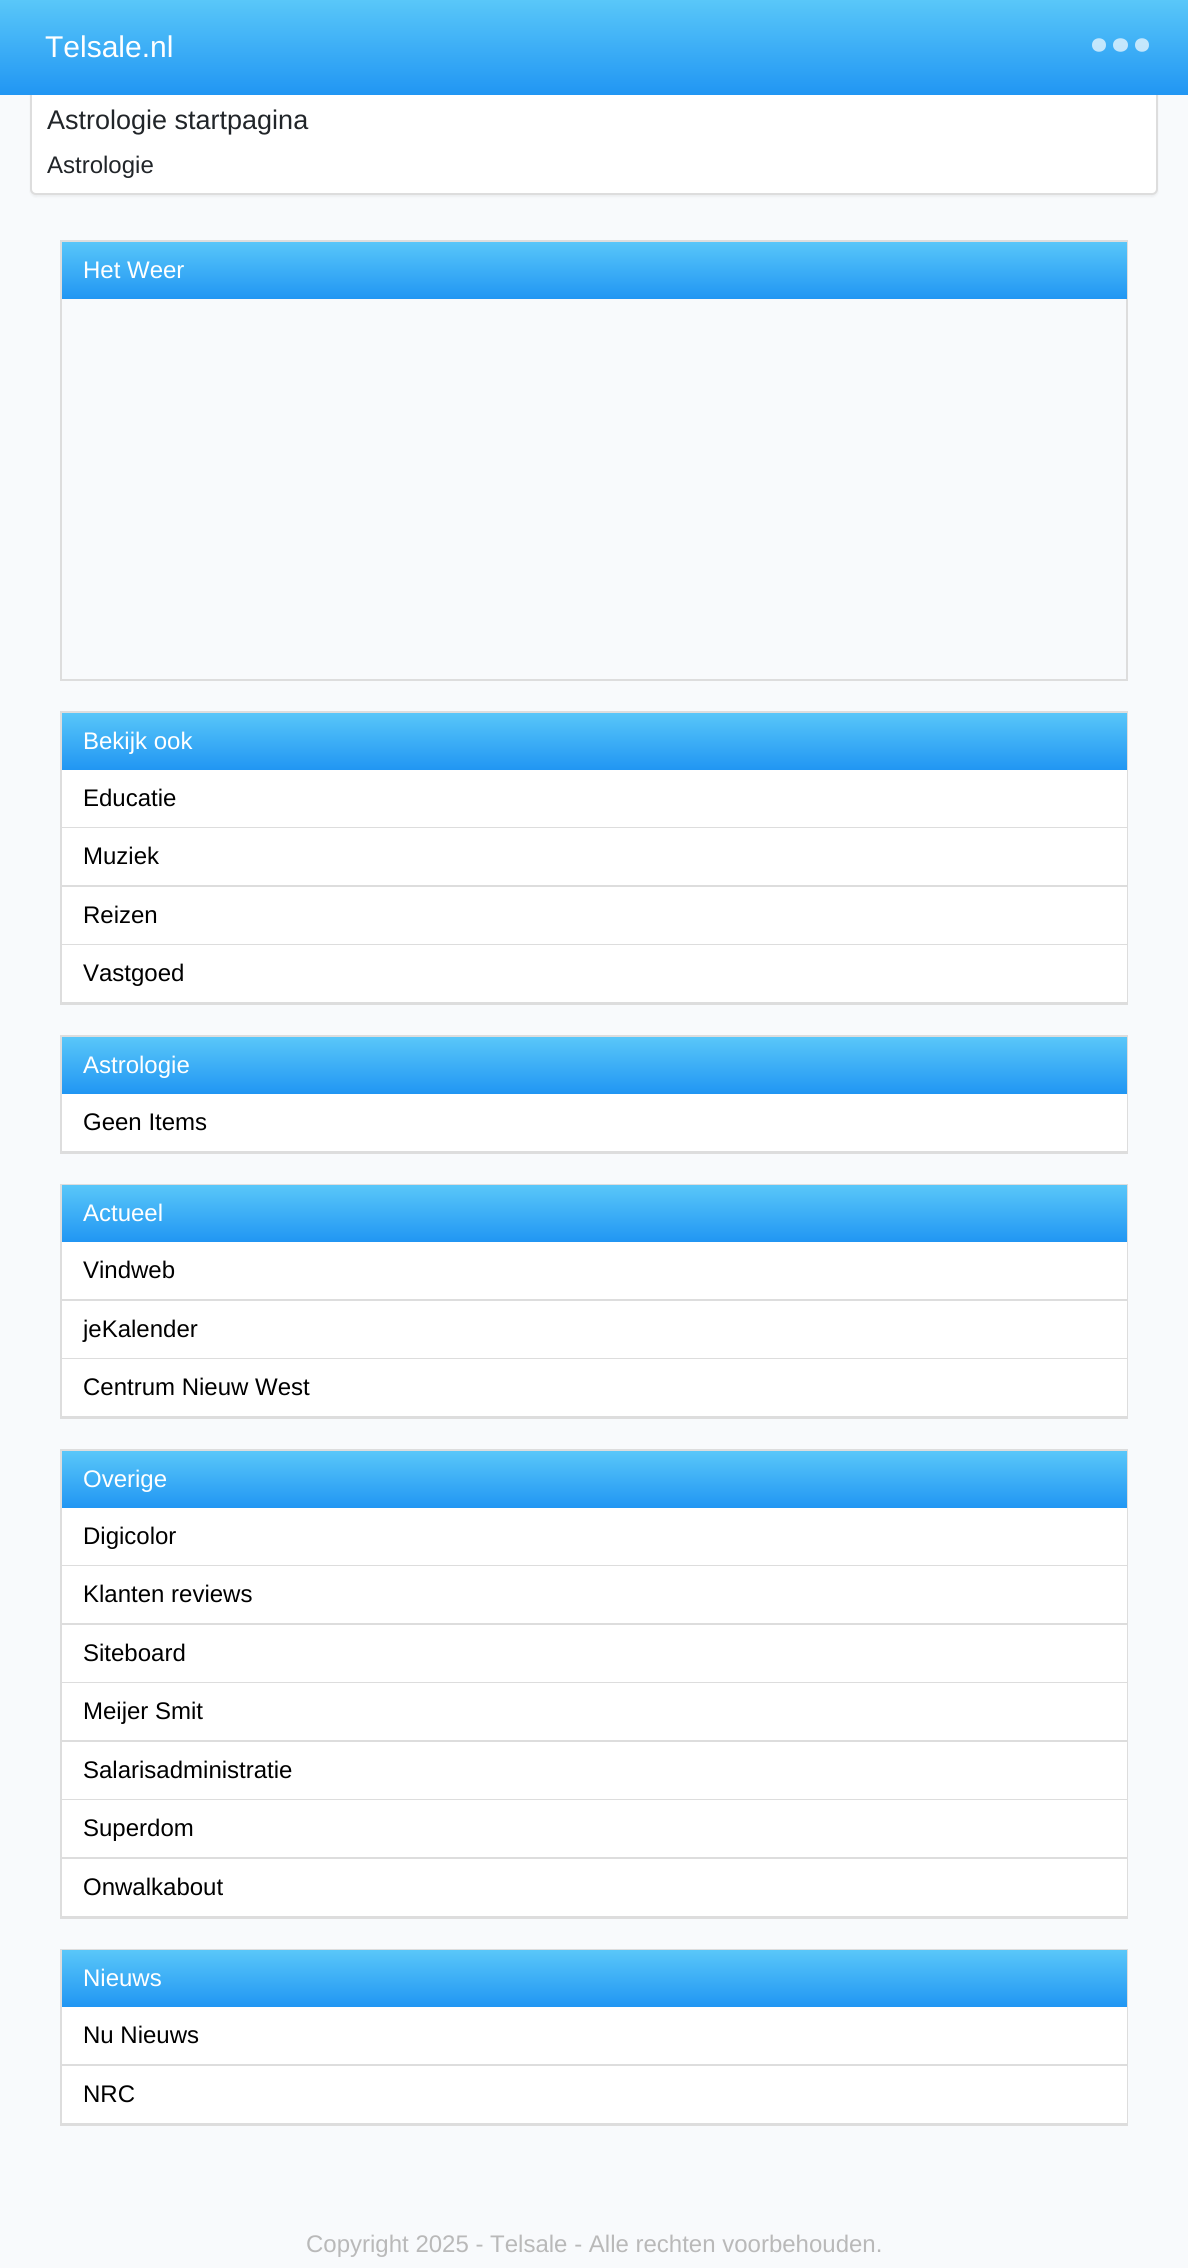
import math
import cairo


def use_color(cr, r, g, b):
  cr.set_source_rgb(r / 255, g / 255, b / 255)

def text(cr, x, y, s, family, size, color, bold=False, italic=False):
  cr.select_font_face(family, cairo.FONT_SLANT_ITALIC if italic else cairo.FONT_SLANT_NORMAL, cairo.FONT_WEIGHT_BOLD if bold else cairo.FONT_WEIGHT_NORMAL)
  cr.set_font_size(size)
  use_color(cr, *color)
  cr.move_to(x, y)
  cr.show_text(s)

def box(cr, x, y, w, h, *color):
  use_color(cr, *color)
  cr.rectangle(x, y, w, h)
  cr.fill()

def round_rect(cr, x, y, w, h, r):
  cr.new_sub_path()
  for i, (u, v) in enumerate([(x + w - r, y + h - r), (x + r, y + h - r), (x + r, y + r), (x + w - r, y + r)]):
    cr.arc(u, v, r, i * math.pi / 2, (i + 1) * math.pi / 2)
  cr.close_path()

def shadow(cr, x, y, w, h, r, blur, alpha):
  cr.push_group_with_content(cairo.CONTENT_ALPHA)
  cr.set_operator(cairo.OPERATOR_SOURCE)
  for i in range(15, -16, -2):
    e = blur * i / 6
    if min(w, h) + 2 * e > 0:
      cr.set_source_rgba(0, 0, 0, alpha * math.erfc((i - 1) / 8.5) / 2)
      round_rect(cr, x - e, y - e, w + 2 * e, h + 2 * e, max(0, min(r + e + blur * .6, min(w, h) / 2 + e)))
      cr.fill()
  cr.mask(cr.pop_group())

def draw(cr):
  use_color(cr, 248, 250, 252)
  cr.paint()
  use_color(cr, 0, 0, 0)
  shadow(cr, 30, 90, 1128, 107, 6, 1, 0.05)
  use_color(cr, 255, 255, 255)
  round_rect(cr, 31, 90, 1126, 104, 5)
  cr.fill_preserve()
  use_color(cr, 221, 221, 221)
  cr.stroke()
  gradient = cairo.LinearGradient(594, 0, 594, 95)
  gradient.add_color_stop_rgba(0, 0.349, 0.78, 0.976, 1)
  gradient.add_color_stop_rgba(1, 0.129, 0.588, 0.953, 1)
  cr.set_source(gradient)
  cr.rectangle(0, 0, 1188, 95)
  cr.fill()
  cr.set_source_rgba(1, 1, 1, 0.69)
  cr.set_fill_rule(cairo.FILL_RULE_EVEN_ODD)
  cr.new_path()
  cr.move_to(1135, 45)
  cr.curve_to(1135, 36, 1149, 36, 1149, 45)
  cr.curve_to(1149, 54, 1135, 54, 1135, 45)
  cr.close_path()
  cr.move_to(1113, 45)
  cr.curve_to(1113, 36, 1128, 36, 1128, 45)
  cr.curve_to(1128, 54, 1113, 54, 1113, 45)
  cr.close_path()
  cr.move_to(1092, 45)
  cr.curve_to(1092, 36, 1106, 36, 1106, 45)
  cr.curve_to(1106, 54, 1092, 54, 1092, 45)
  cr.close_path()
  cr.fill()
  cr.rectangle(61, 241, 1066, 439)
  use_color(cr, 221, 221, 221)
  cr.stroke()
  gradient = cairo.LinearGradient(594, 241, 594, 299)
  gradient.add_color_stop_rgba(0, 0.349, 0.78, 0.976, 1)
  gradient.add_color_stop_rgba(1, 0.129, 0.588, 0.953, 1)
  cr.set_source(gradient)
  cr.rectangle(62, 242, 1065, 57)
  cr.fill()
  cr.rectangle(61, 712, 1066, 292)
  use_color(cr, 221, 221, 221)
  cr.stroke()
  gradient = cairo.LinearGradient(594, 712, 594, 770)
  gradient.add_color_stop_rgba(0, 0.349, 0.78, 0.976, 1)
  gradient.add_color_stop_rgba(1, 0.129, 0.588, 0.953, 1)
  cr.set_source(gradient)
  cr.rectangle(62, 713, 1065, 57)
  cr.fill()
  box(cr, 62, 770, 1065, 57, 255, 255, 255)
  box(cr, 62, 827, 1065, 1, 221, 221, 221)
  box(cr, 62, 828, 1065, 57, 255, 255, 255)
  box(cr, 62, 885, 1065, 2, 221, 221, 221)
  box(cr, 62, 887, 1065, 57, 255, 255, 255)
  box(cr, 62, 944, 1065, 1, 221, 221, 221)
  box(cr, 62, 945, 1065, 57, 255, 255, 255)
  box(cr, 62, 1002, 1065, 1, 221, 221, 221)
  cr.rectangle(61, 1036, 1066, 117)
  cr.stroke()
  gradient = cairo.LinearGradient(594, 1037, 594, 1094)
  gradient.add_color_stop_rgba(0, 0.349, 0.78, 0.976, 1)
  gradient.add_color_stop_rgba(1, 0.129, 0.588, 0.953, 1)
  cr.set_source(gradient)
  cr.rectangle(62, 1037, 1065, 57)
  cr.fill()
  box(cr, 62, 1094, 1065, 57, 255, 255, 255)
  box(cr, 62, 1151, 1065, 1, 221, 221, 221)
  cr.rectangle(61, 1185, 1066, 233)
  cr.stroke()
  gradient = cairo.LinearGradient(594, 1185, 594, 1242)
  gradient.add_color_stop_rgba(0, 0.349, 0.78, 0.976, 1)
  gradient.add_color_stop_rgba(1, 0.129, 0.588, 0.953, 1)
  cr.set_source(gradient)
  cr.rectangle(62, 1185, 1065, 57)
  cr.fill()
  box(cr, 62, 1242, 1065, 57, 255, 255, 255)
  box(cr, 62, 1299, 1065, 2, 221, 221, 221)
  box(cr, 62, 1301, 1065, 57, 255, 255, 255)
  box(cr, 62, 1358, 1065, 1, 221, 221, 221)
  box(cr, 62, 1359, 1065, 57, 255, 255, 255)
  box(cr, 62, 1416, 1065, 1, 221, 221, 221)
  cr.rectangle(61, 1450, 1066, 468)
  cr.stroke()
  gradient = cairo.LinearGradient(594, 1451, 594, 1508)
  gradient.add_color_stop_rgba(0, 0.349, 0.78, 0.976, 1)
  gradient.add_color_stop_rgba(1, 0.129, 0.588, 0.953, 1)
  cr.set_source(gradient)
  cr.rectangle(62, 1451, 1065, 57)
  cr.fill()
  box(cr, 62, 1508, 1065, 57, 255, 255, 255)
  box(cr, 62, 1565, 1065, 1, 221, 221, 221)
  box(cr, 62, 1566, 1065, 57, 255, 255, 255)
  box(cr, 62, 1623, 1065, 2, 221, 221, 221)
  box(cr, 62, 1625, 1065, 57, 255, 255, 255)
  box(cr, 62, 1682, 1065, 1, 221, 221, 221)
  box(cr, 62, 1683, 1065, 57, 255, 255, 255)
  box(cr, 62, 1740, 1065, 2, 221, 221, 221)
  box(cr, 62, 1742, 1065, 57, 255, 255, 255)
  box(cr, 62, 1799, 1065, 1, 221, 221, 221)
  box(cr, 62, 1800, 1065, 57, 255, 255, 255)
  box(cr, 62, 1857, 1065, 2, 221, 221, 221)
  box(cr, 62, 1859, 1065, 57, 255, 255, 255)
  box(cr, 62, 1916, 1065, 1, 221, 221, 221)
  cr.rectangle(61, 1950, 1066, 175)
  cr.stroke()
  gradient = cairo.LinearGradient(594, 1950, 594, 2007)
  gradient.add_color_stop_rgba(0, 0.349, 0.78, 0.976, 1)
  gradient.add_color_stop_rgba(1, 0.129, 0.588, 0.953, 1)
  cr.set_source(gradient)
  cr.rectangle(62, 1950, 1065, 57)
  cr.fill()
  box(cr, 62, 2007, 1065, 57, 255, 255, 255)
  box(cr, 62, 2064, 1065, 2, 221, 221, 221)
  box(cr, 62, 2066, 1065, 57, 255, 255, 255)
  box(cr, 62, 2123, 1065, 1, 221, 221, 221)
  text(cr, 45, 57, "Telsale.nl", "Liberation Sans", 30, (255, 255, 255))
  text(cr, 47, 129, "Astrologie startpagina", "Liberation Sans", 27, (33, 37, 41))
  text(cr, 47, 173, "Astrologie", "Liberation Sans", 24, (33, 37, 41))
  text(cr, 83, 278, "Het Weer", "Liberation Sans", 24, (255, 255, 255))
  text(cr, 83, 749, "Bekijk ook", "Liberation Sans", 24, (255, 255, 255))
  text(cr, 83, 806, "Educatie", "Liberation Sans", 24, (0, 0, 0))
  text(cr, 83, 864, "Muziek", "Liberation Sans", 24, (0, 0, 0))
  text(cr, 83, 923, "Reizen", "Liberation Sans", 24, (0, 0, 0))
  text(cr, 83, 981, "Vastgoed", "Liberation Sans", 24, (0, 0, 0))
  text(cr, 83, 1073, "Astrologie", "Liberation Sans", 24, (255, 255, 255))
  text(cr, 83, 1130, "Geen Items", "Liberation Sans", 24, (0, 0, 0))
  text(cr, 83, 1221, "Actueel", "Liberation Sans", 24, (255, 255, 255))
  text(cr, 83, 1278, "Vindweb", "Liberation Sans", 24, (0, 0, 0))
  text(cr, 83, 1337, "jeKalender", "Liberation Sans", 24, (0, 0, 0))
  text(cr, 83, 1395, "Centrum Nieuw West", "Liberation Sans", 24, (0, 0, 0))
  text(cr, 83, 1487, "Overige", "Liberation Sans", 24, (255, 255, 255))
  text(cr, 83, 1544, "Digicolor", "Liberation Sans", 24, (0, 0, 0))
  text(cr, 83, 1602, "Klanten reviews", "Liberation Sans", 24, (0, 0, 0))
  text(cr, 83, 1661, "Siteboard", "Liberation Sans", 24, (0, 0, 0))
  text(cr, 83, 1719, "Meijer Smit", "Liberation Sans", 24, (0, 0, 0))
  text(cr, 83, 1778, "Salarisadministratie", "Liberation Sans", 24, (0, 0, 0))
  text(cr, 83, 1836, "Superdom", "Liberation Sans", 24, (0, 0, 0))
  text(cr, 83, 1895, "Onwalkabout", "Liberation Sans", 24, (0, 0, 0))
  text(cr, 83, 1986, "Nieuws", "Liberation Sans", 24, (255, 255, 255))
  text(cr, 83, 2043, "Nu Nieuws", "Liberation Sans", 24, (0, 0, 0))
  text(cr, 83, 2102, "NRC", "Liberation Sans", 24, (0, 0, 0))
  text(cr, 306, 2252, "Copyright 2025 - Telsale - Alle rechten voorbehouden.", "Liberation Sans", 24, (185, 185, 185))


surface = cairo.ImageSurface(cairo.FORMAT_RGB24, 1188, 2268)
cr = cairo.Context(surface)
options = cairo.FontOptions()
options.set_hint_metrics(cairo.HINT_METRICS_OFF)
options.set_hint_style(cairo.HINT_STYLE_NONE)
cr.set_font_options(options)
cr.set_miter_limit(4)
draw(cr)
surface.write_to_png("out.png")
